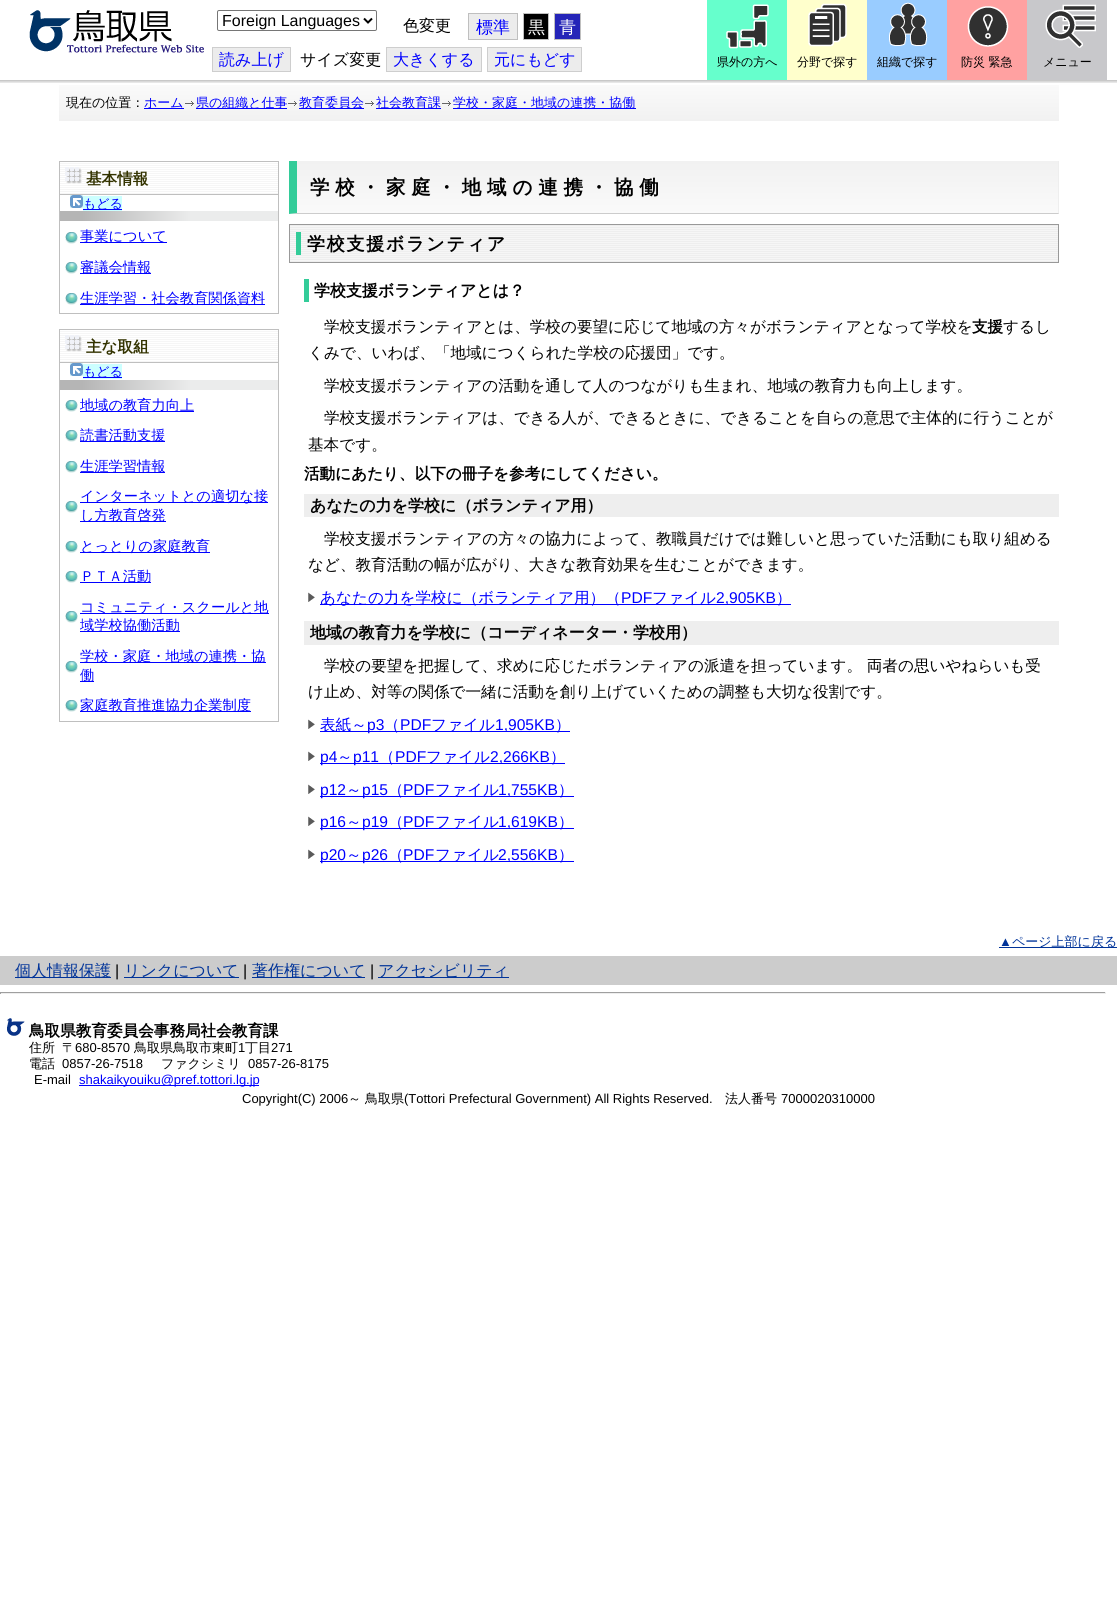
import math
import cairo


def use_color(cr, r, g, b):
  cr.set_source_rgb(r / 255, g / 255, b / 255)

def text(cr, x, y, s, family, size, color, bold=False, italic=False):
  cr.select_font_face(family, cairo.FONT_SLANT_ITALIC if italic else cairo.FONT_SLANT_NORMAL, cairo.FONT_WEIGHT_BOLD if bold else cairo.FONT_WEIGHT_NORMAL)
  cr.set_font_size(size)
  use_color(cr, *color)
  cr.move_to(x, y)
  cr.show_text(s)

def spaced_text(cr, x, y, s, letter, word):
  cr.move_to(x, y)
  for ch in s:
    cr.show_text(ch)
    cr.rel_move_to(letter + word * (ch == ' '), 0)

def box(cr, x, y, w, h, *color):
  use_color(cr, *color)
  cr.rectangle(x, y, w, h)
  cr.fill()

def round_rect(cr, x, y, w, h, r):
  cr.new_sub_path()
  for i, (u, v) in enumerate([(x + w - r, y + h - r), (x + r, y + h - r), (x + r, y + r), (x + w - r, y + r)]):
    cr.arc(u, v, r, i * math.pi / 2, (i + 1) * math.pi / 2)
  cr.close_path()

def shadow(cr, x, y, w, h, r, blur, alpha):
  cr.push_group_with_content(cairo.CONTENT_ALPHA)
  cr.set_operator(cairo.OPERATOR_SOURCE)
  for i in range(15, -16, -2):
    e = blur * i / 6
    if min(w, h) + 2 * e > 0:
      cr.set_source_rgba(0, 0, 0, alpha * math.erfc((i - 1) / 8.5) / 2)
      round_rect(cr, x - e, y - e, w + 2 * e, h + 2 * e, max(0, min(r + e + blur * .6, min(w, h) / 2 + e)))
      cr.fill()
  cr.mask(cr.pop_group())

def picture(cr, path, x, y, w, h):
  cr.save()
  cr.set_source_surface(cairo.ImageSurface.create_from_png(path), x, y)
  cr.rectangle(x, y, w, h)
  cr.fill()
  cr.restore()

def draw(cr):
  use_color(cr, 255, 255, 255)
  cr.paint()
  gradient = cairo.LinearGradient(559, 85, 559, 121)
  gradient.add_color_stop_rgba(0, 0.98, 0.98, 0.98, 1)
  gradient.add_color_stop_rgba(1, 0.945, 0.945, 0.945, 1)
  cr.set_source(gradient)
  cr.rectangle(59, 85, 1000, 36)
  cr.fill()
  cr.save()
  cr.rectangle(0, 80, 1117, 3)
  cr.clip()
  use_color(cr, 0, 0, 0)
  shadow(cr, -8, 1, 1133, 80, 0, 2.5, 0.1)
  shadow(cr, -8, 1, 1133, 80, 0, 2.5, 0.1)
  shadow(cr, -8, 1, 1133, 80, 0, 2.5, 0.1)
  shadow(cr, -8, 1, 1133, 80, 0, 2.5, 0.1)
  cr.restore()
  picture(cr, "img_01.png", 29, 10, 175, 43)
  round_rect(cr, 217.5, 10.5, 159, 20, 1.5)
  use_color(cr, 118, 118, 118)
  cr.set_line_width(1)
  cr.stroke()
  cr.new_path()
  cr.move_to(364, 18.5)
  cr.line_to(368, 22.5)
  cr.line_to(372, 18.5)
  use_color(cr, 0, 0, 0)
  cr.set_line_width(2)
  cr.stroke()
  use_color(cr, 236, 236, 236)
  cr.rectangle(468.5, 13.5, 49, 26)
  cr.fill_preserve()
  use_color(cr, 191, 191, 191)
  cr.set_line_width(1)
  cr.stroke()
  use_color(cr, 0, 0, 0)
  cr.rectangle(523.5, 13.5, 25, 26)
  cr.fill_preserve()
  use_color(cr, 191, 191, 191)
  cr.stroke()
  use_color(cr, 37, 37, 184)
  cr.rectangle(554.5, 13.5, 26, 26)
  cr.fill_preserve()
  use_color(cr, 191, 191, 191)
  cr.stroke()
  use_color(cr, 236, 236, 236)
  cr.rectangle(212.5, 47.5, 78, 24)
  cr.fill_preserve()
  use_color(cr, 206, 206, 206)
  cr.stroke()
  box(cr, 387, 48, 94, 23, 236, 236, 236)
  box(cr, 386, 47, 96, 1, 206, 206, 206)
  box(cr, 386, 71, 23, 1, 206, 206, 206)
  box(cr, 386, 47, 1, 25, 206, 206, 206)
  box(cr, 481, 47, 1, 25, 206, 206, 206)
  box(cr, 409, 71, 73, 1, 206, 206, 206)
  box(cr, 488, 48, 93, 23, 236, 236, 236)
  box(cr, 487, 47, 95, 1, 206, 206, 206)
  box(cr, 487, 71, 23, 1, 206, 206, 206)
  box(cr, 487, 47, 1, 25, 206, 206, 206)
  box(cr, 581, 47, 1, 25, 206, 206, 206)
  box(cr, 510, 71, 72, 1, 206, 206, 206)
  box(cr, 707, 0, 80, 80, 102, 255, 204)
  picture(cr, "img_02.png", 726, 4, 43, 45)
  box(cr, 787, 0, 80, 80, 255, 255, 204)
  picture(cr, "img_03.png", 808, 3, 39, 44)
  box(cr, 867, 0, 80, 80, 153, 204, 255)
  picture(cr, "img_04.png", 889, 2, 39, 44)
  box(cr, 947, 0, 80, 80, 255, 161, 161)
  picture(cr, "img_05.png", 967, 6, 42, 41)
  box(cr, 1027, 0, 80, 80, 200, 200, 203)
  picture(cr, "img_06.png", 1045, 4, 51, 44)
  box(cr, 144, 108, 40, 1, 0, 0, 255)
  picture(cr, "img_07.png", 185, 101, 9, 5)
  box(cr, 196, 108, 91, 1, 0, 0, 255)
  picture(cr, "img_07.png", 288, 101, 9, 5)
  box(cr, 299, 108, 65, 1, 0, 0, 255)
  picture(cr, "img_07.png", 365, 101, 9, 5)
  box(cr, 376, 108, 65, 1, 0, 0, 255)
  picture(cr, "img_07.png", 442, 101, 9, 5)
  box(cr, 453, 108, 183, 1, 0, 0, 255)
  cr.rectangle(59.5, 161.5, 219, 152)
  use_color(cr, 191, 191, 191)
  cr.stroke()
  picture(cr, "img_08.png", 60, 163, 218, 31)
  box(cr, 60, 194, 218, 1, 191, 191, 191)
  picture(cr, "img_09.png", 65, 167, 17, 17)
  box(cr, 70, 195, 13, 13, 204, 255, 255)
  picture(cr, "img_10.png", 70, 195, 13, 13)
  box(cr, 83, 196, 39, 15, 204, 255, 255)
  box(cr, 83, 209, 39, 1, 0, 0, 255)
  gradient = cairo.LinearGradient(60, 216, 278, 216)
  gradient.add_color_stop_rgba(0, 0.71, 0.71, 0.71, 1)
  gradient.add_color_stop_rgba(0.1, 0.71, 0.71, 0.71, 1)
  gradient.add_color_stop_rgba(0.6, 0.922, 0.925, 0.925, 1)
  gradient.add_color_stop_rgba(1, 0.922, 0.925, 0.925, 1)
  cr.set_source(gradient)
  cr.rectangle(60, 211, 218, 10)
  cr.fill()
  picture(cr, "img_11.png", 65, 232, 13, 12)
  box(cr, 80, 242, 87, 1, 0, 0, 255)
  picture(cr, "img_11.png", 65, 262, 13, 12)
  box(cr, 80, 273, 71, 1, 0, 0, 255)
  picture(cr, "img_11.png", 65, 293, 13, 12)
  box(cr, 80, 304, 185, 1, 0, 0, 255)
  cr.rectangle(59.5, 329.5, 219, 392)
  use_color(cr, 191, 191, 191)
  cr.stroke()
  picture(cr, "img_08.png", 60, 331, 218, 31)
  box(cr, 60, 362, 218, 1, 191, 191, 191)
  picture(cr, "img_09.png", 65, 335, 17, 17)
  box(cr, 70, 363, 13, 13, 204, 255, 255)
  picture(cr, "img_10.png", 70, 363, 13, 13)
  box(cr, 83, 364, 39, 15, 204, 255, 255)
  box(cr, 83, 377, 39, 1, 0, 0, 255)
  gradient = cairo.LinearGradient(60, 385, 278, 385)
  gradient.add_color_stop_rgba(0, 0.71, 0.71, 0.71, 1)
  gradient.add_color_stop_rgba(0.1, 0.71, 0.71, 0.71, 1)
  gradient.add_color_stop_rgba(0.6, 0.922, 0.925, 0.925, 1)
  gradient.add_color_stop_rgba(1, 0.922, 0.925, 0.925, 1)
  cr.set_source(gradient)
  cr.rectangle(60, 380, 218, 10)
  cr.fill()
  picture(cr, "img_11.png", 65, 400, 13, 12)
  box(cr, 80, 411, 114, 1, 0, 0, 255)
  picture(cr, "img_11.png", 65, 430, 13, 12)
  box(cr, 80, 441, 85, 1, 0, 0, 255)
  picture(cr, "img_11.png", 65, 461, 13, 12)
  box(cr, 80, 472, 85, 1, 0, 0, 255)
  picture(cr, "img_11.png", 65, 501, 13, 12)
  box(cr, 80, 502, 188, 1, 0, 0, 255)
  box(cr, 80, 521, 86, 1, 0, 0, 255)
  picture(cr, "img_11.png", 65, 541, 13, 12)
  box(cr, 80, 552, 130, 1, 0, 0, 255)
  picture(cr, "img_11.png", 65, 571, 13, 12)
  box(cr, 80, 582, 71, 1, 0, 0, 255)
  picture(cr, "img_11.png", 65, 611, 13, 12)
  box(cr, 80, 613, 189, 1, 0, 0, 255)
  box(cr, 80, 631, 100, 1, 0, 0, 255)
  picture(cr, "img_11.png", 65, 661, 13, 12)
  box(cr, 80, 662, 186, 1, 0, 0, 255)
  box(cr, 80, 681, 14, 1, 0, 0, 255)
  picture(cr, "img_11.png", 65, 700, 13, 12)
  box(cr, 80, 711, 171, 1, 0, 0, 255)
  gradient = cairo.LinearGradient(678, 161, 678, 213)
  gradient.add_color_stop_rgba(0, 0.945, 0.945, 0.945, 1)
  gradient.add_color_stop_rgba(1, 0.98, 0.98, 0.98, 1)
  cr.set_source(gradient)
  cr.rectangle(297, 161, 761, 52)
  cr.fill()
  box(cr, 1058, 161, 1, 53, 238, 238, 238)
  use_color(cr, 204, 204, 204)
  cr.new_path()
  cr.move_to(1059, 214)
  cr.line_to(289, 214)
  cr.line_to(297, 213)
  cr.line_to(1058, 213)
  cr.close_path()
  cr.fill()
  use_color(cr, 51, 204, 153)
  cr.new_path()
  cr.move_to(289, 214)
  cr.line_to(289, 161)
  cr.line_to(297, 161)
  cr.line_to(297, 213)
  cr.close_path()
  cr.fill()
  picture(cr, "img_12.png", 290, 225, 768, 37)
  cr.rectangle(289.5, 224.5, 769, 38)
  use_color(cr, 153, 153, 153)
  cr.stroke()
  box(cr, 296, 232, 5, 23, 51, 204, 153)
  box(cr, 304, 279, 5, 23, 51, 204, 153)
  box(cr, 304, 494, 755, 23, 238, 238, 238)
  picture(cr, "img_13.png", 308, 592, 7, 10)
  box(cr, 320, 604, 471, 1, 0, 0, 255)
  box(cr, 304, 621, 755, 24, 238, 238, 238)
  picture(cr, "img_13.png", 308, 719, 7, 10)
  box(cr, 320, 731, 250, 1, 0, 0, 255)
  picture(cr, "img_13.png", 308, 751, 7, 10)
  box(cr, 320, 763, 245, 1, 0, 0, 255)
  picture(cr, "img_13.png", 308, 784, 7, 10)
  box(cr, 320, 796, 254, 1, 0, 0, 255)
  picture(cr, "img_13.png", 308, 816, 7, 10)
  box(cr, 320, 828, 254, 1, 0, 0, 255)
  picture(cr, "img_13.png", 308, 849, 7, 10)
  box(cr, 320, 861, 254, 1, 0, 0, 255)
  box(cr, 999, 947, 118, 1, 0, 51, 153)
  box(cr, 0, 956, 1117, 29, 204, 204, 204)
  box(cr, 15, 977, 96, 1, 0, 51, 153)
  box(cr, 124, 977, 115, 1, 0, 51, 153)
  box(cr, 252, 977, 113, 1, 0, 51, 153)
  box(cr, 378, 977, 131, 1, 0, 51, 153)
  box(cr, 0, 992, 1106, 1, 159, 159, 159)
  box(cr, 1105, 992, 1, 2, 238, 238, 238)
  box(cr, 0, 993, 1106, 1, 238, 238, 238)
  box(cr, 0, 992, 1, 2, 159, 159, 159)
  picture(cr, "img_14.png", 7, 1018, 18, 18)
  box(cr, 79, 1085, 180, 1, 0, 0, 255)
  text(cr, 222, 26, "Foreign Languages", "Liberation Sans", 16, (0, 0, 0))
  text(cr, 403, 31, "色変更", "WenQuanYi Zen Hei Medium", 16, (0, 0, 0))
  text(cr, 476, 33, "標準", "WenQuanYi Zen Hei Medium", 17, (0, 0, 255))
  text(cr, 528, 33, "黒", "WenQuanYi Zen Hei Medium", 17, (255, 255, 255))
  text(cr, 559, 33, "青", "WenQuanYi Zen Hei Medium", 17, (255, 255, 255))
  text(cr, 219, 65, "読み上げ", "WenQuanYi Zen Hei Medium", 16, (0, 0, 255))
  text(cr, 300, 65, "サイズ変更", "WenQuanYi Zen Hei Medium", 16, (0, 0, 0))
  text(cr, 393, 65, "大きくする", "WenQuanYi Zen Hei Medium", 16, (0, 0, 255))
  text(cr, 494, 65, "元にもどす", "WenQuanYi Zen Hei Medium", 16, (0, 0, 255))
  text(cr, 717, 66, "県外の方へ", "WenQuanYi Zen Hei Medium", 12, (0, 0, 0))
  text(cr, 797, 66, "分野で探す", "WenQuanYi Zen Hei Medium", 12, (0, 0, 0))
  text(cr, 877, 66, "組織で探す", "WenQuanYi Zen Hei Medium", 12, (0, 0, 0))
  text(cr, 961, 66, "防災 緊急", "WenQuanYi Zen Hei Medium", 12, (0, 0, 0))
  text(cr, 1043, 66, "メニュー", "WenQuanYi Zen Hei Medium", 12, (0, 0, 0))
  text(cr, 66, 107, "現在の位置：", "WenQuanYi Zen Hei Medium", 13, (0, 0, 0))
  text(cr, 144, 107, "ホーム", "WenQuanYi Zen Hei Medium", 13, (0, 0, 255))
  text(cr, 196, 107, "県の組織と仕事", "WenQuanYi Zen Hei Medium", 13, (0, 0, 255))
  text(cr, 299, 107, "教育委員会", "WenQuanYi Zen Hei Medium", 13, (0, 0, 255))
  text(cr, 376, 107, "社会教育課", "WenQuanYi Zen Hei Medium", 13, (0, 0, 255))
  text(cr, 453, 107, "学校・家庭・地域の連携・協働", "WenQuanYi Zen Hei Medium", 13, (0, 0, 255))
  text(cr, 86, 184, "基本情報", "WenQuanYi Zen Hei", 15.6, (51, 51, 0), bold=True)
  text(cr, 83, 208, "もどる", "WenQuanYi Zen Hei Medium", 13, (0, 0, 255))
  text(cr, 80, 241, "事業について", "WenQuanYi Zen Hei Medium", 14.25, (0, 0, 255))
  text(cr, 80, 272, "審議会情報", "WenQuanYi Zen Hei Medium", 14.25, (0, 0, 255))
  text(cr, 80, 303, "生涯学習・社会教育関係資料", "WenQuanYi Zen Hei Medium", 14.25, (0, 0, 255))
  text(cr, 86, 352, "主な取組", "WenQuanYi Zen Hei", 15.6, (51, 51, 0), bold=True)
  text(cr, 83, 376, "もどる", "WenQuanYi Zen Hei Medium", 13, (0, 0, 255))
  text(cr, 80, 410, "地域の教育力向上", "WenQuanYi Zen Hei Medium", 14.25, (0, 0, 255))
  text(cr, 80, 440, "読書活動支援", "WenQuanYi Zen Hei Medium", 14.25, (0, 0, 255))
  text(cr, 80, 471, "生涯学習情報", "WenQuanYi Zen Hei Medium", 14.25, (0, 0, 255))
  text(cr, 80, 501, "インターネットとの適切な接", "WenQuanYi Zen Hei Medium", 14.25, (0, 0, 255))
  text(cr, 80, 520, "し方教育啓発", "WenQuanYi Zen Hei Medium", 14.25, (0, 0, 255))
  text(cr, 80, 551, "とっとりの家庭教育", "WenQuanYi Zen Hei Medium", 14.25, (0, 0, 255))
  text(cr, 80, 581, "ＰＴＡ活動", "WenQuanYi Zen Hei Medium", 14.25, (0, 0, 255))
  text(cr, 80, 612, "コミュニティ・スクールと地", "WenQuanYi Zen Hei Medium", 14.25, (0, 0, 255))
  text(cr, 80, 630, "域学校協働活動", "WenQuanYi Zen Hei Medium", 14.25, (0, 0, 255))
  text(cr, 80, 661, "学校・家庭・地域の連携・協", "WenQuanYi Zen Hei Medium", 14.25, (0, 0, 255))
  text(cr, 80, 680, "働", "WenQuanYi Zen Hei Medium", 14.25, (0, 0, 255))
  text(cr, 80, 710, "家庭教育推進協力企業制度", "WenQuanYi Zen Hei Medium", 14.25, (0, 0, 255))
  cr.select_font_face("WenQuanYi Zen Hei", cairo.FONT_SLANT_NORMAL, cairo.FONT_WEIGHT_BOLD)
  cr.set_font_size(19.5)
  use_color(cr, 0, 0, 0)
  spaced_text(cr, 310, 194, "学校・家庭・地域の連携・協働", 5.8, 0)
  cr.set_font_size(18)
  spaced_text(cr, 307, 250, "学校支援ボランティア", 1.75, 0)
  text(cr, 314, 296, "学校支援ボランティアとは？", "WenQuanYi Zen Hei", 16, (0, 0, 0), bold=True)
  text(cr, 324, 332, "学校支援ボランティアとは、学校の要望に応じて地域の方々がボランティアとなって学校を", "WenQuanYi Zen Hei Medium", 15.6, (0, 0, 0))
  text(cr, 972, 332, "支援", "WenQuanYi Zen Hei", 15.6, (0, 0, 0), bold=True)
  text(cr, 1003, 332, "するし", "WenQuanYi Zen Hei Medium", 15.6, (0, 0, 0))
  text(cr, 308, 358, "くみで、いわば、「地域につくられた学校の応援団」です。", "WenQuanYi Zen Hei Medium", 15.6, (0, 0, 0))
  text(cr, 324, 391, "学校支援ボランティアの活動を通して人のつながりも生まれ、地域の教育力も向上します。", "WenQuanYi Zen Hei Medium", 15.6, (0, 0, 0))
  text(cr, 324, 423, "学校支援ボランティアは、できる人が、できるときに、できることを自らの意思で主体的に行うことが", "WenQuanYi Zen Hei Medium", 15.6, (0, 0, 0))
  text(cr, 308, 450, "基本です。", "WenQuanYi Zen Hei Medium", 15.6, (0, 0, 0))
  text(cr, 304, 479, "活動にあたり、以下の冊子を参考にしてください。", "WenQuanYi Zen Hei", 15.6, (0, 0, 0), bold=True)
  text(cr, 310, 511, "あなたの力を学校に（ボランティア用）", "WenQuanYi Zen Hei", 16, (0, 0, 0), bold=True)
  text(cr, 324, 544, "学校支援ボランティアの方々の協力によって、教職員だけでは難しいと思っていた活動にも取り組める", "WenQuanYi Zen Hei Medium", 15.6, (0, 0, 0))
  text(cr, 308, 570, "など、教育活動の幅が広がり、大きな教育効果を生むことができます。", "WenQuanYi Zen Hei Medium", 15.6, (0, 0, 0))
  text(cr, 320, 603, "あなたの力を学校に（ボランティア用）（", "WenQuanYi Zen Hei Medium", 15.6, (0, 0, 255))
  text(cr, 621, 603, "PDF", "Liberation Sans", 15.6, (0, 0, 255))
  text(cr, 652, 603, "ファイル", "WenQuanYi Zen Hei Medium", 15.6, (0, 0, 255))
  text(cr, 716, 603, "2,905KB", "Liberation Sans", 15.6, (0, 0, 255))
  text(cr, 776, 603, "）", "WenQuanYi Zen Hei Medium", 15.6, (0, 0, 255))
  text(cr, 310, 638, "地域の教育力を学校に（コーディネーター・学校用）", "WenQuanYi Zen Hei", 16, (0, 0, 0), bold=True)
  text(cr, 324, 671, "学校の要望を把握して、求めに応じたボランティアの派遣を担っています。 両者の思いやねらいも受", "WenQuanYi Zen Hei Medium", 15.6, (0, 0, 0))
  text(cr, 308, 697, "け止め、対等の関係で一緒に活動を創り上げていくための調整も大切な役割です。", "WenQuanYi Zen Hei Medium", 15.6, (0, 0, 0))
  text(cr, 320, 730, "表紙～", "WenQuanYi Zen Hei Medium", 15.6, (0, 0, 255))
  text(cr, 367, 730, "p3", "Liberation Sans", 15.6, (0, 0, 255))
  text(cr, 384, 730, "（", "WenQuanYi Zen Hei Medium", 15.6, (0, 0, 255))
  text(cr, 400, 730, "PDF", "Liberation Sans", 15.6, (0, 0, 255))
  text(cr, 431, 730, "ファイル", "WenQuanYi Zen Hei Medium", 15.6, (0, 0, 255))
  text(cr, 495, 730, "1,905KB", "Liberation Sans", 15.6, (0, 0, 255))
  text(cr, 555, 730, "）", "WenQuanYi Zen Hei Medium", 15.6, (0, 0, 255))
  text(cr, 320, 762, "p4", "Liberation Sans", 15.6, (0, 0, 255))
  text(cr, 337, 762, "～", "WenQuanYi Zen Hei Medium", 15.6, (0, 0, 255))
  text(cr, 353, 762, "p11", "Liberation Sans", 15.6, (0, 0, 255))
  text(cr, 379, 762, "（", "WenQuanYi Zen Hei Medium", 15.6, (0, 0, 255))
  text(cr, 395, 762, "PDF", "Liberation Sans", 15.6, (0, 0, 255))
  text(cr, 426, 762, "ファイル", "WenQuanYi Zen Hei Medium", 15.6, (0, 0, 255))
  text(cr, 490, 762, "2,266KB", "Liberation Sans", 15.6, (0, 0, 255))
  text(cr, 550, 762, "）", "WenQuanYi Zen Hei Medium", 15.6, (0, 0, 255))
  text(cr, 320, 795, "p12", "Liberation Sans", 15.6, (0, 0, 255))
  text(cr, 346, 795, "～", "WenQuanYi Zen Hei Medium", 15.6, (0, 0, 255))
  text(cr, 362, 795, "p15", "Liberation Sans", 15.6, (0, 0, 255))
  text(cr, 388, 795, "（", "WenQuanYi Zen Hei Medium", 15.6, (0, 0, 255))
  text(cr, 403, 795, "PDF", "Liberation Sans", 15.6, (0, 0, 255))
  text(cr, 435, 795, "ファイル", "WenQuanYi Zen Hei Medium", 15.6, (0, 0, 255))
  text(cr, 498, 795, "1,755KB", "Liberation Sans", 15.6, (0, 0, 255))
  text(cr, 558, 795, "）", "WenQuanYi Zen Hei Medium", 15.6, (0, 0, 255))
  text(cr, 320, 827, "p16", "Liberation Sans", 15.6, (0, 0, 255))
  text(cr, 346, 827, "～", "WenQuanYi Zen Hei Medium", 15.6, (0, 0, 255))
  text(cr, 362, 827, "p19", "Liberation Sans", 15.6, (0, 0, 255))
  text(cr, 388, 827, "（", "WenQuanYi Zen Hei Medium", 15.6, (0, 0, 255))
  text(cr, 403, 827, "PDF", "Liberation Sans", 15.6, (0, 0, 255))
  text(cr, 435, 827, "ファイル", "WenQuanYi Zen Hei Medium", 15.6, (0, 0, 255))
  text(cr, 498, 827, "1,619KB", "Liberation Sans", 15.6, (0, 0, 255))
  text(cr, 558, 827, "）", "WenQuanYi Zen Hei Medium", 15.6, (0, 0, 255))
  text(cr, 320, 860, "p20", "Liberation Sans", 15.6, (0, 0, 255))
  text(cr, 346, 860, "～", "WenQuanYi Zen Hei Medium", 15.6, (0, 0, 255))
  text(cr, 362, 860, "p26", "Liberation Sans", 15.6, (0, 0, 255))
  text(cr, 388, 860, "（", "WenQuanYi Zen Hei Medium", 15.6, (0, 0, 255))
  text(cr, 403, 860, "PDF", "Liberation Sans", 15.6, (0, 0, 255))
  text(cr, 435, 860, "ファイル", "WenQuanYi Zen Hei Medium", 15.6, (0, 0, 255))
  text(cr, 498, 860, "2,556KB", "Liberation Sans", 15.6, (0, 0, 255))
  text(cr, 558, 860, "）", "WenQuanYi Zen Hei Medium", 15.6, (0, 0, 255))
  text(cr, 999, 946, "▲", "Liberation Sans", 13, (0, 51, 153))
  text(cr, 1012, 946, "ページ上部に戻る", "WenQuanYi Zen Hei Medium", 13, (0, 51, 153))
  text(cr, 15, 976, "個人情報保護", "WenQuanYi Zen Hei Medium", 16, (0, 51, 153))
  text(cr, 115, 976, "|", "Liberation Sans", 16, (0, 0, 0))
  text(cr, 124, 976, "リンクについて", "WenQuanYi Zen Hei Medium", 16, (0, 51, 153))
  text(cr, 243, 976, "|", "Liberation Sans", 16, (0, 0, 0))
  text(cr, 252, 976, "著作権について", "WenQuanYi Zen Hei Medium", 16, (0, 51, 153))
  text(cr, 370, 976, "|", "Liberation Sans", 16, (0, 0, 0))
  text(cr, 378, 976, "アクセシビリティ", "WenQuanYi Zen Hei Medium", 16, (0, 51, 153))
  text(cr, 29, 1036, "鳥取県教育委員会事務局社会教育課", "WenQuanYi Zen Hei", 15.6, (0, 0, 0), bold=True)
  text(cr, 29, 1052, "住所", "WenQuanYi Zen Hei Medium", 13, (0, 0, 0))
  text(cr, 62, 1052, "〒", "WenQuanYi Zen Hei Medium", 13, (0, 0, 0))
  text(cr, 75, 1052, "680-8570", "Liberation Sans", 13, (0, 0, 0))
  text(cr, 134, 1052, "鳥取県鳥取市東町", "WenQuanYi Zen Hei Medium", 13, (0, 0, 0))
  text(cr, 238, 1052, "1", "Liberation Sans", 13, (0, 0, 0))
  text(cr, 245, 1052, "丁目", "WenQuanYi Zen Hei Medium", 13, (0, 0, 0))
  text(cr, 271, 1052, "271", "Liberation Sans", 13, (0, 0, 0))
  text(cr, 29, 1068, "電話", "WenQuanYi Zen Hei Medium", 13, (0, 0, 0))
  text(cr, 62, 1068, "0857-26-7518", "Liberation Sans", 13, (0, 0, 0))
  text(cr, 161, 1068, "ファクシミリ", "WenQuanYi Zen Hei Medium", 13, (0, 0, 0))
  text(cr, 248, 1068, "0857-26-8175", "Liberation Sans", 13, (0, 0, 0))
  text(cr, 34, 1084, "E-mail", "Liberation Sans", 13, (0, 0, 0))
  text(cr, 79, 1084, "shakaikyouiku@pref.tottori.lg.jp", "Liberation Sans", 13, (0, 0, 255))
  text(cr, 242, 1103, "Copyright(C) 2006", "Liberation Sans", 13, (0, 0, 0))
  text(cr, 348, 1103, "～ 鳥取県", "WenQuanYi Zen Hei Medium", 13, (0, 0, 0))
  text(cr, 404, 1103, "(Tottori Prefectural Government) All Rights Reserved.", "Liberation Sans", 13, (0, 0, 0))
  text(cr, 725, 1103, "法人番号", "WenQuanYi Zen Hei Medium", 13, (0, 0, 0))
  text(cr, 781, 1103, "7000020310000", "Liberation Sans", 13, (0, 0, 0))


surface = cairo.ImageSurface(cairo.FORMAT_RGB24, 1117, 1599)
cr = cairo.Context(surface)
options = cairo.FontOptions()
options.set_hint_metrics(cairo.HINT_METRICS_OFF)
options.set_hint_style(cairo.HINT_STYLE_NONE)
cr.set_font_options(options)
cr.set_miter_limit(4)
draw(cr)
surface.write_to_png("out.png")
